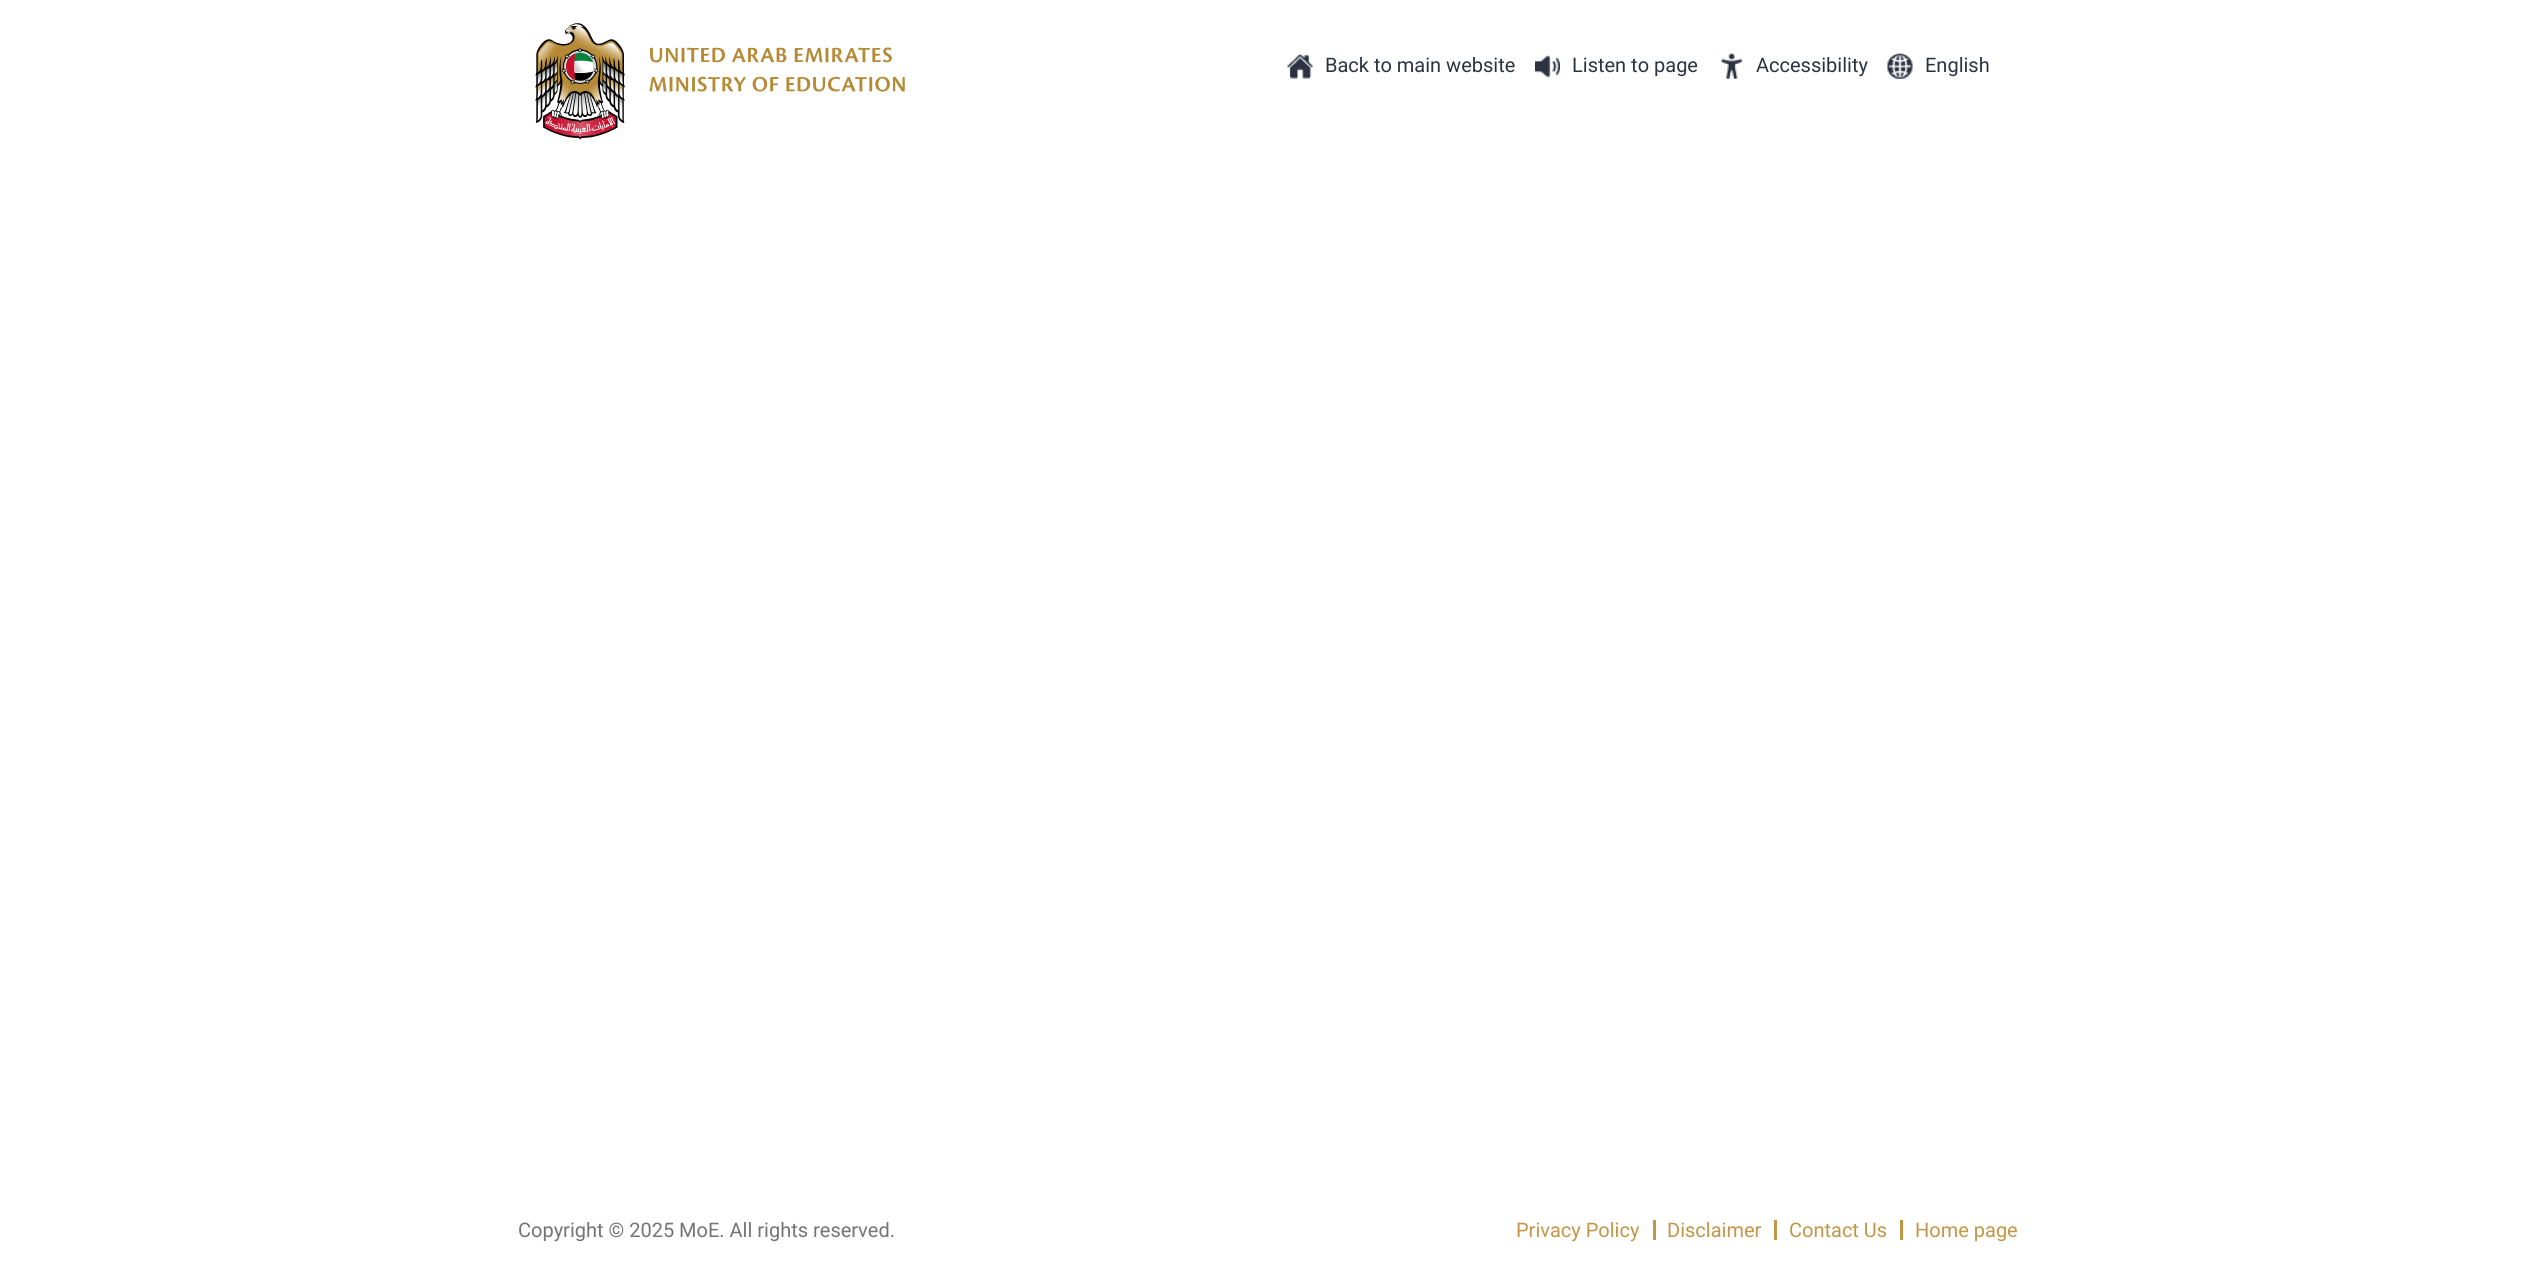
import math
import cairo


def use_color(cr, r, g, b):
  cr.set_source_rgb(r / 255, g / 255, b / 255)

def text(cr, x, y, s, family, size, color, bold=False, italic=False):
  cr.select_font_face(family, cairo.FONT_SLANT_ITALIC if italic else cairo.FONT_SLANT_NORMAL, cairo.FONT_WEIGHT_BOLD if bold else cairo.FONT_WEIGHT_NORMAL)
  cr.set_font_size(size)
  use_color(cr, *color)
  cr.move_to(x, y)
  cr.show_text(s)

def box(cr, x, y, w, h, *color):
  use_color(cr, *color)
  cr.rectangle(x, y, w, h)
  cr.fill()

def picture(cr, path, x, y, w, h):
  cr.save()
  cr.set_source_surface(cairo.ImageSurface.create_from_png(path), x, y)
  cr.rectangle(x, y, w, h)
  cr.fill()
  cr.restore()

def draw(cr):
  use_color(cr, 255, 255, 255)
  cr.paint()
  picture(cr, "img_01.png", 535, 23, 370, 117)
  picture(cr, "img_02.png", 1287, 53, 26, 26)
  picture(cr, "img_03.png", 1535, 55, 25, 23)
  picture(cr, "img_04.png", 1721, 53, 22, 26)
  picture(cr, "img_05.png", 1887, 53, 26, 26)
  box(cr, 1653, 1220, 3, 20, 195, 149, 71)
  box(cr, 1774, 1220, 3, 20, 195, 149, 71)
  box(cr, 1900, 1220, 3, 20, 195, 149, 71)
  text(cr, 1325, 72, "Back to main website", "Roboto", 20, (44, 50, 65))
  text(cr, 1572, 72, "Listen to page", "Roboto", 20, (44, 50, 65))
  text(cr, 1756, 72, "Accessibility", "Roboto", 20, (44, 50, 65))
  text(cr, 1925, 72, "English", "Roboto", 20, (44, 50, 65))
  text(cr, 518, 1237, "Copyright © 2025 MoE. All rights reserved.", "Roboto", 20, (116, 116, 116))
  text(cr, 1516, 1237, "Privacy Policy", "Roboto", 20, (195, 149, 71))
  text(cr, 1667, 1237, "Disclaimer", "Roboto", 20, (195, 149, 71))
  text(cr, 1789, 1237, "Contact Us", "Roboto", 20, (195, 149, 71))
  text(cr, 1915, 1237, "Home page", "Roboto", 20, (195, 149, 71))


surface = cairo.ImageSurface(cairo.FORMAT_RGB24, 2535, 1282)
cr = cairo.Context(surface)
options = cairo.FontOptions()
options.set_hint_metrics(cairo.HINT_METRICS_OFF)
options.set_hint_style(cairo.HINT_STYLE_NONE)
cr.set_font_options(options)
cr.set_miter_limit(4)
draw(cr)
surface.write_to_png("out.png")
